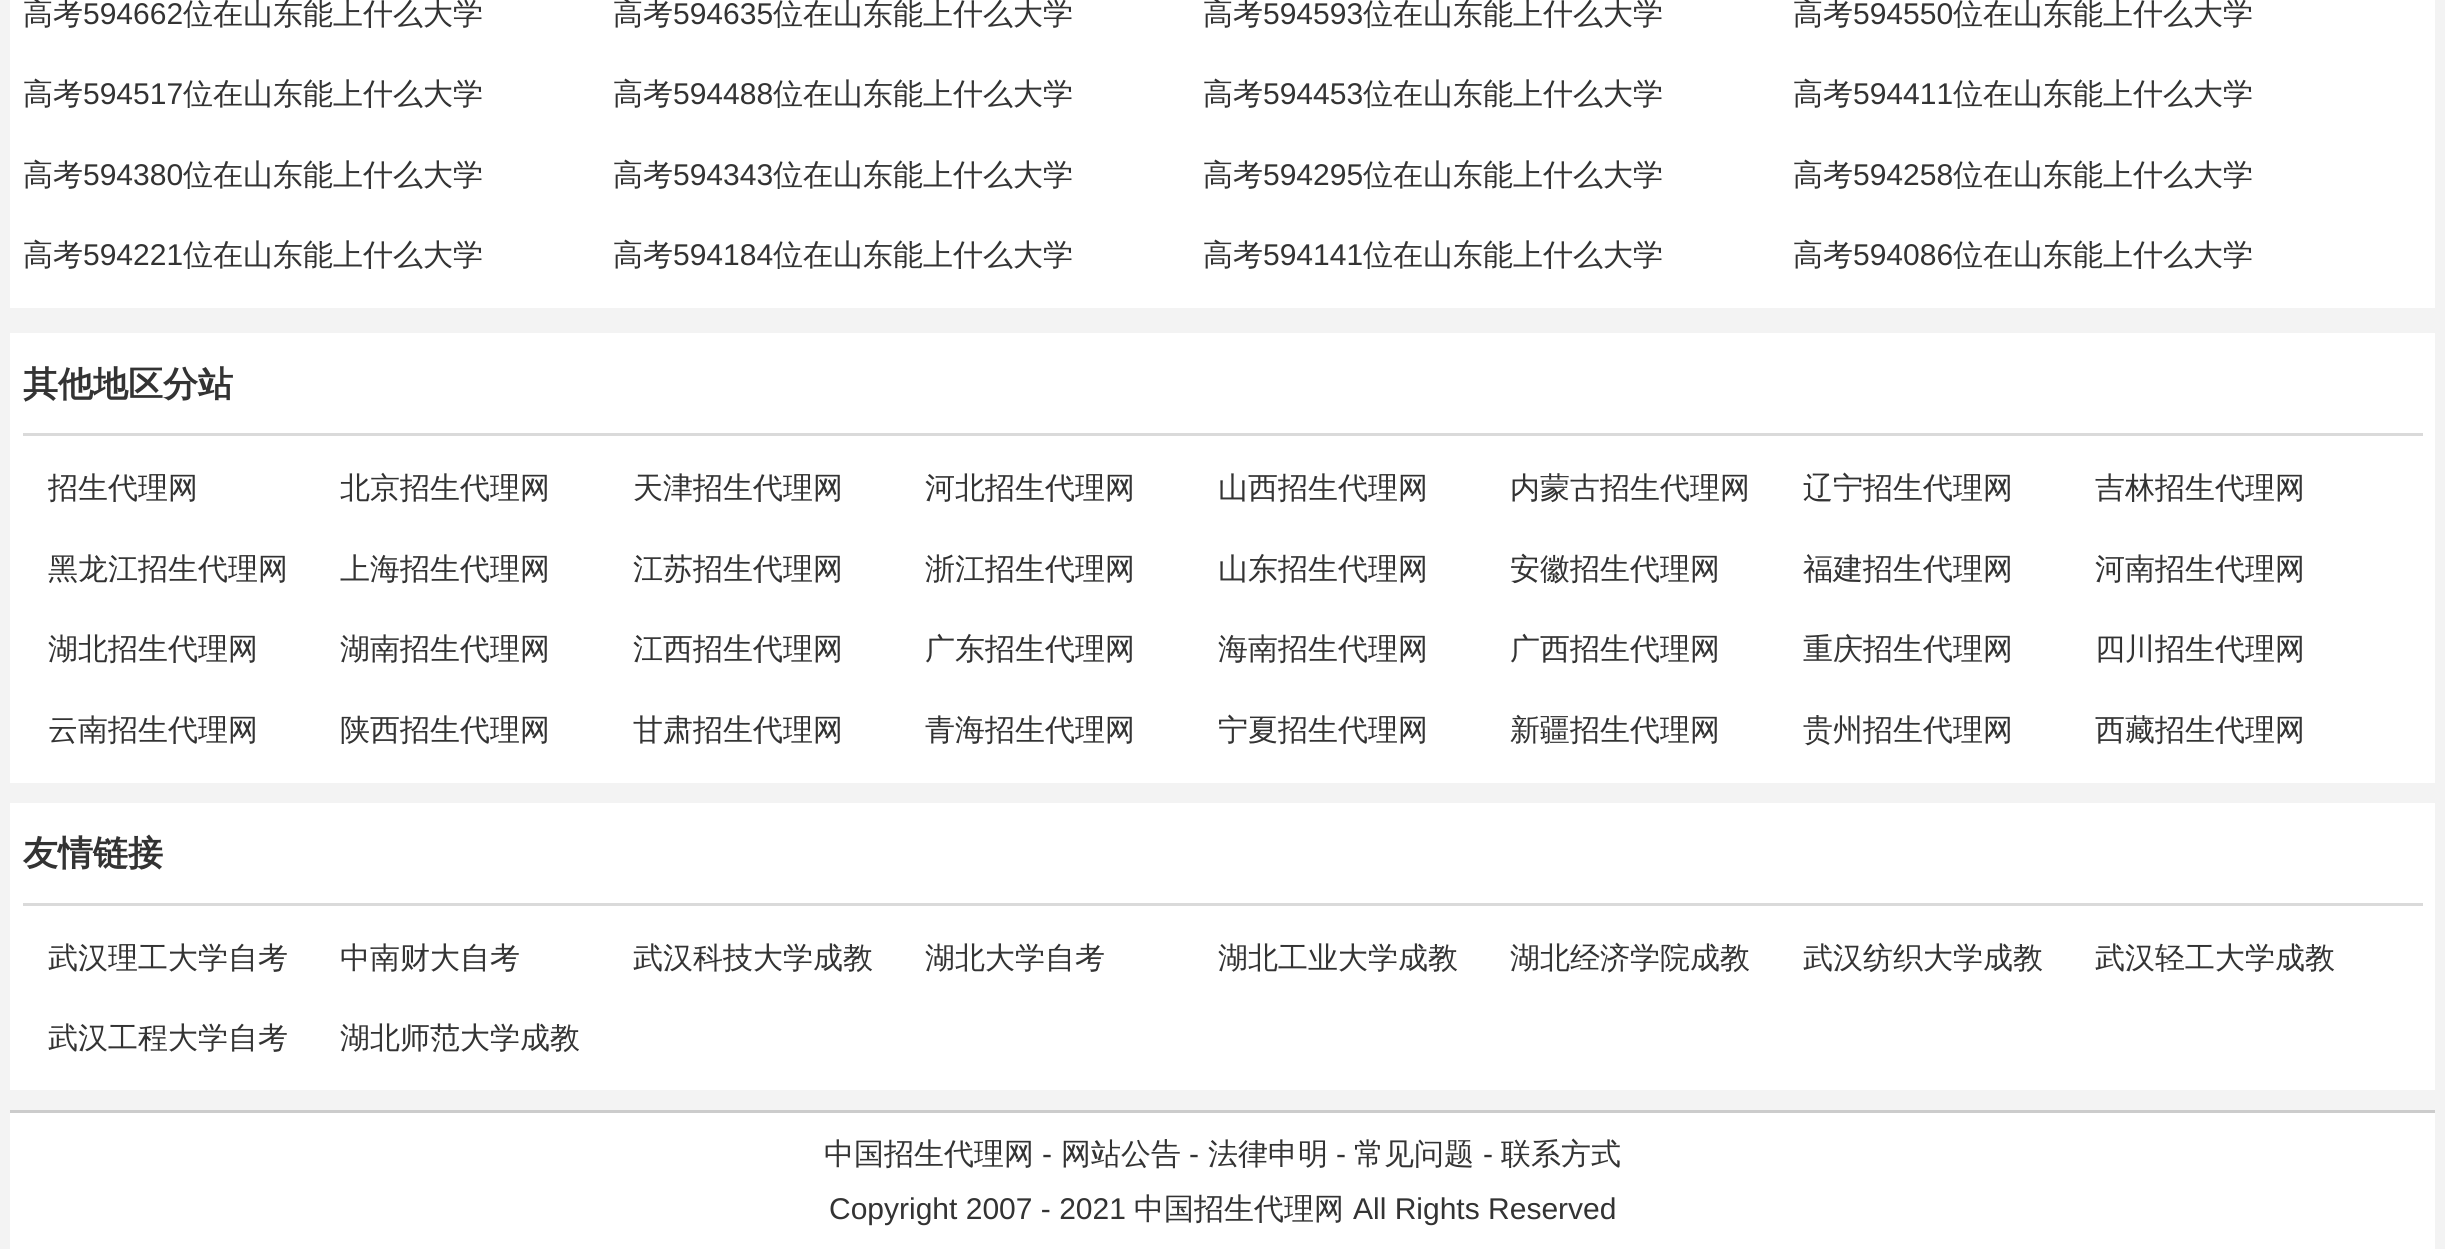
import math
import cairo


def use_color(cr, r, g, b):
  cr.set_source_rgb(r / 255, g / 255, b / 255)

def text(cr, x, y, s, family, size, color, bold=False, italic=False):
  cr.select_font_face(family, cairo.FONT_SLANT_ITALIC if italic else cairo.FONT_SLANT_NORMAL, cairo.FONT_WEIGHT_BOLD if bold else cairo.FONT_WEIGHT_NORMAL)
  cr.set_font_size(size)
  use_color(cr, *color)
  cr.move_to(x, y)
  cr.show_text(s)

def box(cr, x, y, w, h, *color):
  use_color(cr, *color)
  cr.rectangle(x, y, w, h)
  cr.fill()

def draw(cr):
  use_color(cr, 243, 243, 243)
  cr.paint()
  box(cr, 10, 0, 2425, 308, 255, 255, 255)
  box(cr, 10, 333, 2425, 450, 255, 255, 255)
  box(cr, 23, 433, 2400, 3, 218, 218, 218)
  box(cr, 10, 803, 2425, 287, 255, 255, 255)
  box(cr, 23, 903, 2400, 3, 218, 218, 218)
  box(cr, 10, 1113, 2425, 136, 255, 255, 255)
  box(cr, 10, 1110, 2425, 3, 204, 204, 204)
  text(cr, 23, 24, "高考", "WenQuanYi Zen Hei Medium", 30, (51, 51, 51))
  text(cr, 83, 24, "594662", "Liberation Sans", 30, (51, 51, 51))
  text(cr, 183, 24, "位在山东能上什么大学", "WenQuanYi Zen Hei Medium", 30, (51, 51, 51))
  text(cr, 613, 24, "高考", "WenQuanYi Zen Hei Medium", 30, (51, 51, 51))
  text(cr, 673, 24, "594635", "Liberation Sans", 30, (51, 51, 51))
  text(cr, 773, 24, "位在山东能上什么大学", "WenQuanYi Zen Hei Medium", 30, (51, 51, 51))
  text(cr, 1203, 24, "高考", "WenQuanYi Zen Hei Medium", 30, (51, 51, 51))
  text(cr, 1263, 24, "594593", "Liberation Sans", 30, (51, 51, 51))
  text(cr, 1363, 24, "位在山东能上什么大学", "WenQuanYi Zen Hei Medium", 30, (51, 51, 51))
  text(cr, 1793, 24, "高考", "WenQuanYi Zen Hei Medium", 30, (51, 51, 51))
  text(cr, 1853, 24, "594550", "Liberation Sans", 30, (51, 51, 51))
  text(cr, 1953, 24, "位在山东能上什么大学", "WenQuanYi Zen Hei Medium", 30, (51, 51, 51))
  text(cr, 23, 104, "高考", "WenQuanYi Zen Hei Medium", 30, (51, 51, 51))
  text(cr, 83, 104, "594517", "Liberation Sans", 30, (51, 51, 51))
  text(cr, 183, 104, "位在山东能上什么大学", "WenQuanYi Zen Hei Medium", 30, (51, 51, 51))
  text(cr, 613, 104, "高考", "WenQuanYi Zen Hei Medium", 30, (51, 51, 51))
  text(cr, 673, 104, "594488", "Liberation Sans", 30, (51, 51, 51))
  text(cr, 773, 104, "位在山东能上什么大学", "WenQuanYi Zen Hei Medium", 30, (51, 51, 51))
  text(cr, 1203, 104, "高考", "WenQuanYi Zen Hei Medium", 30, (51, 51, 51))
  text(cr, 1263, 104, "594453", "Liberation Sans", 30, (51, 51, 51))
  text(cr, 1363, 104, "位在山东能上什么大学", "WenQuanYi Zen Hei Medium", 30, (51, 51, 51))
  text(cr, 1793, 104, "高考", "WenQuanYi Zen Hei Medium", 30, (51, 51, 51))
  text(cr, 1853, 104, "594411", "Liberation Sans", 30, (51, 51, 51))
  text(cr, 1953, 104, "位在山东能上什么大学", "WenQuanYi Zen Hei Medium", 30, (51, 51, 51))
  text(cr, 23, 185, "高考", "WenQuanYi Zen Hei Medium", 30, (51, 51, 51))
  text(cr, 83, 185, "594380", "Liberation Sans", 30, (51, 51, 51))
  text(cr, 183, 185, "位在山东能上什么大学", "WenQuanYi Zen Hei Medium", 30, (51, 51, 51))
  text(cr, 613, 185, "高考", "WenQuanYi Zen Hei Medium", 30, (51, 51, 51))
  text(cr, 673, 185, "594343", "Liberation Sans", 30, (51, 51, 51))
  text(cr, 773, 185, "位在山东能上什么大学", "WenQuanYi Zen Hei Medium", 30, (51, 51, 51))
  text(cr, 1203, 185, "高考", "WenQuanYi Zen Hei Medium", 30, (51, 51, 51))
  text(cr, 1263, 185, "594295", "Liberation Sans", 30, (51, 51, 51))
  text(cr, 1363, 185, "位在山东能上什么大学", "WenQuanYi Zen Hei Medium", 30, (51, 51, 51))
  text(cr, 1793, 185, "高考", "WenQuanYi Zen Hei Medium", 30, (51, 51, 51))
  text(cr, 1853, 185, "594258", "Liberation Sans", 30, (51, 51, 51))
  text(cr, 1953, 185, "位在山东能上什么大学", "WenQuanYi Zen Hei Medium", 30, (51, 51, 51))
  text(cr, 23, 265, "高考", "WenQuanYi Zen Hei Medium", 30, (51, 51, 51))
  text(cr, 83, 265, "594221", "Liberation Sans", 30, (51, 51, 51))
  text(cr, 183, 265, "位在山东能上什么大学", "WenQuanYi Zen Hei Medium", 30, (51, 51, 51))
  text(cr, 613, 265, "高考", "WenQuanYi Zen Hei Medium", 30, (51, 51, 51))
  text(cr, 673, 265, "594184", "Liberation Sans", 30, (51, 51, 51))
  text(cr, 773, 265, "位在山东能上什么大学", "WenQuanYi Zen Hei Medium", 30, (51, 51, 51))
  text(cr, 1203, 265, "高考", "WenQuanYi Zen Hei Medium", 30, (51, 51, 51))
  text(cr, 1263, 265, "594141", "Liberation Sans", 30, (51, 51, 51))
  text(cr, 1363, 265, "位在山东能上什么大学", "WenQuanYi Zen Hei Medium", 30, (51, 51, 51))
  text(cr, 1793, 265, "高考", "WenQuanYi Zen Hei Medium", 30, (51, 51, 51))
  text(cr, 1853, 265, "594086", "Liberation Sans", 30, (51, 51, 51))
  text(cr, 1953, 265, "位在山东能上什么大学", "WenQuanYi Zen Hei Medium", 30, (51, 51, 51))
  text(cr, 23, 396, "其他地区分站", "WenQuanYi Zen Hei", 35, (51, 51, 51), bold=True)
  cr.save()
  cr.rectangle(48, 448, 292, 82)
  cr.clip()
  text(cr, 48, 498, "招生代理网", "WenQuanYi Zen Hei Medium", 30, (51, 51, 51))
  cr.restore()
  text(cr, 340, 498, "北京招生代理网", "WenQuanYi Zen Hei Medium", 30, (51, 51, 51))
  text(cr, 633, 498, "天津招生代理网", "WenQuanYi Zen Hei Medium", 30, (51, 51, 51))
  text(cr, 925, 498, "河北招生代理网", "WenQuanYi Zen Hei Medium", 30, (51, 51, 51))
  text(cr, 1218, 498, "山西招生代理网", "WenQuanYi Zen Hei Medium", 30, (51, 51, 51))
  text(cr, 1510, 498, "内蒙古招生代理网", "WenQuanYi Zen Hei Medium", 30, (51, 51, 51))
  text(cr, 1803, 498, "辽宁招生代理网", "WenQuanYi Zen Hei Medium", 30, (51, 51, 51))
  text(cr, 2095, 498, "吉林招生代理网", "WenQuanYi Zen Hei Medium", 30, (51, 51, 51))
  text(cr, 48, 579, "黑龙江招生代理网", "WenQuanYi Zen Hei Medium", 30, (51, 51, 51))
  text(cr, 340, 579, "上海招生代理网", "WenQuanYi Zen Hei Medium", 30, (51, 51, 51))
  text(cr, 633, 579, "江苏招生代理网", "WenQuanYi Zen Hei Medium", 30, (51, 51, 51))
  text(cr, 925, 579, "浙江招生代理网", "WenQuanYi Zen Hei Medium", 30, (51, 51, 51))
  text(cr, 1218, 579, "山东招生代理网", "WenQuanYi Zen Hei Medium", 30, (51, 51, 51))
  text(cr, 1510, 579, "安徽招生代理网", "WenQuanYi Zen Hei Medium", 30, (51, 51, 51))
  text(cr, 1803, 579, "福建招生代理网", "WenQuanYi Zen Hei Medium", 30, (51, 51, 51))
  text(cr, 2095, 579, "河南招生代理网", "WenQuanYi Zen Hei Medium", 30, (51, 51, 51))
  text(cr, 48, 659, "湖北招生代理网", "WenQuanYi Zen Hei Medium", 30, (51, 51, 51))
  text(cr, 340, 659, "湖南招生代理网", "WenQuanYi Zen Hei Medium", 30, (51, 51, 51))
  text(cr, 633, 659, "江西招生代理网", "WenQuanYi Zen Hei Medium", 30, (51, 51, 51))
  text(cr, 925, 659, "广东招生代理网", "WenQuanYi Zen Hei Medium", 30, (51, 51, 51))
  text(cr, 1218, 659, "海南招生代理网", "WenQuanYi Zen Hei Medium", 30, (51, 51, 51))
  text(cr, 1510, 659, "广西招生代理网", "WenQuanYi Zen Hei Medium", 30, (51, 51, 51))
  text(cr, 1803, 659, "重庆招生代理网", "WenQuanYi Zen Hei Medium", 30, (51, 51, 51))
  text(cr, 2095, 659, "四川招生代理网", "WenQuanYi Zen Hei Medium", 30, (51, 51, 51))
  text(cr, 48, 740, "云南招生代理网", "WenQuanYi Zen Hei Medium", 30, (51, 51, 51))
  text(cr, 340, 740, "陕西招生代理网", "WenQuanYi Zen Hei Medium", 30, (51, 51, 51))
  text(cr, 633, 740, "甘肃招生代理网", "WenQuanYi Zen Hei Medium", 30, (51, 51, 51))
  text(cr, 925, 740, "青海招生代理网", "WenQuanYi Zen Hei Medium", 30, (51, 51, 51))
  text(cr, 1218, 740, "宁夏招生代理网", "WenQuanYi Zen Hei Medium", 30, (51, 51, 51))
  text(cr, 1510, 740, "新疆招生代理网", "WenQuanYi Zen Hei Medium", 30, (51, 51, 51))
  text(cr, 1803, 740, "贵州招生代理网", "WenQuanYi Zen Hei Medium", 30, (51, 51, 51))
  text(cr, 2095, 740, "西藏招生代理网", "WenQuanYi Zen Hei Medium", 30, (51, 51, 51))
  text(cr, 23, 865, "友情链接", "WenQuanYi Zen Hei", 35, (51, 51, 51), bold=True)
  text(cr, 48, 968, "武汉理工大学自考", "WenQuanYi Zen Hei Medium", 30, (51, 51, 51))
  text(cr, 340, 968, "中南财大自考", "WenQuanYi Zen Hei Medium", 30, (51, 51, 51))
  text(cr, 633, 968, "武汉科技大学成教", "WenQuanYi Zen Hei Medium", 30, (51, 51, 51))
  text(cr, 925, 968, "湖北大学自考", "WenQuanYi Zen Hei Medium", 30, (51, 51, 51))
  text(cr, 1218, 968, "湖北工业大学成教", "WenQuanYi Zen Hei Medium", 30, (51, 51, 51))
  text(cr, 1510, 968, "湖北经济学院成教", "WenQuanYi Zen Hei Medium", 30, (51, 51, 51))
  text(cr, 1803, 968, "武汉纺织大学成教", "WenQuanYi Zen Hei Medium", 30, (51, 51, 51))
  text(cr, 2095, 968, "武汉轻工大学成教", "WenQuanYi Zen Hei Medium", 30, (51, 51, 51))
  text(cr, 48, 1048, "武汉工程大学自考", "WenQuanYi Zen Hei Medium", 30, (51, 51, 51))
  text(cr, 340, 1048, "湖北师范大学成教", "WenQuanYi Zen Hei Medium", 30, (51, 51, 51))
  text(cr, 824, 1164, "中国招生代理网", "WenQuanYi Zen Hei Medium", 30, (51, 51, 51))
  text(cr, 1042, 1164, "-", "Liberation Sans", 30, (51, 51, 51))
  text(cr, 1061, 1164, "网站公告", "WenQuanYi Zen Hei Medium", 30, (51, 51, 51))
  text(cr, 1189, 1164, "-", "Liberation Sans", 30, (51, 51, 51))
  text(cr, 1208, 1164, "法律申明", "WenQuanYi Zen Hei Medium", 30, (51, 51, 51))
  text(cr, 1336, 1164, "-", "Liberation Sans", 30, (51, 51, 51))
  text(cr, 1354, 1164, "常见问题", "WenQuanYi Zen Hei Medium", 30, (51, 51, 51))
  text(cr, 1483, 1164, "-", "Liberation Sans", 30, (51, 51, 51))
  text(cr, 1501, 1164, "联系方式", "WenQuanYi Zen Hei Medium", 30, (51, 51, 51))
  text(cr, 829, 1219, "Copyright 2007 - 2021", "Liberation Sans", 30, (51, 51, 51))
  text(cr, 1134, 1219, "中国招生代理网", "WenQuanYi Zen Hei Medium", 30, (51, 51, 51))
  text(cr, 1353, 1219, "All Rights Reserved", "Liberation Sans", 30, (51, 51, 51))


surface = cairo.ImageSurface(cairo.FORMAT_RGB24, 2445, 1249)
cr = cairo.Context(surface)
options = cairo.FontOptions()
options.set_hint_metrics(cairo.HINT_METRICS_OFF)
options.set_hint_style(cairo.HINT_STYLE_NONE)
cr.set_font_options(options)
cr.set_miter_limit(4)
draw(cr)
surface.write_to_png("out.png")
